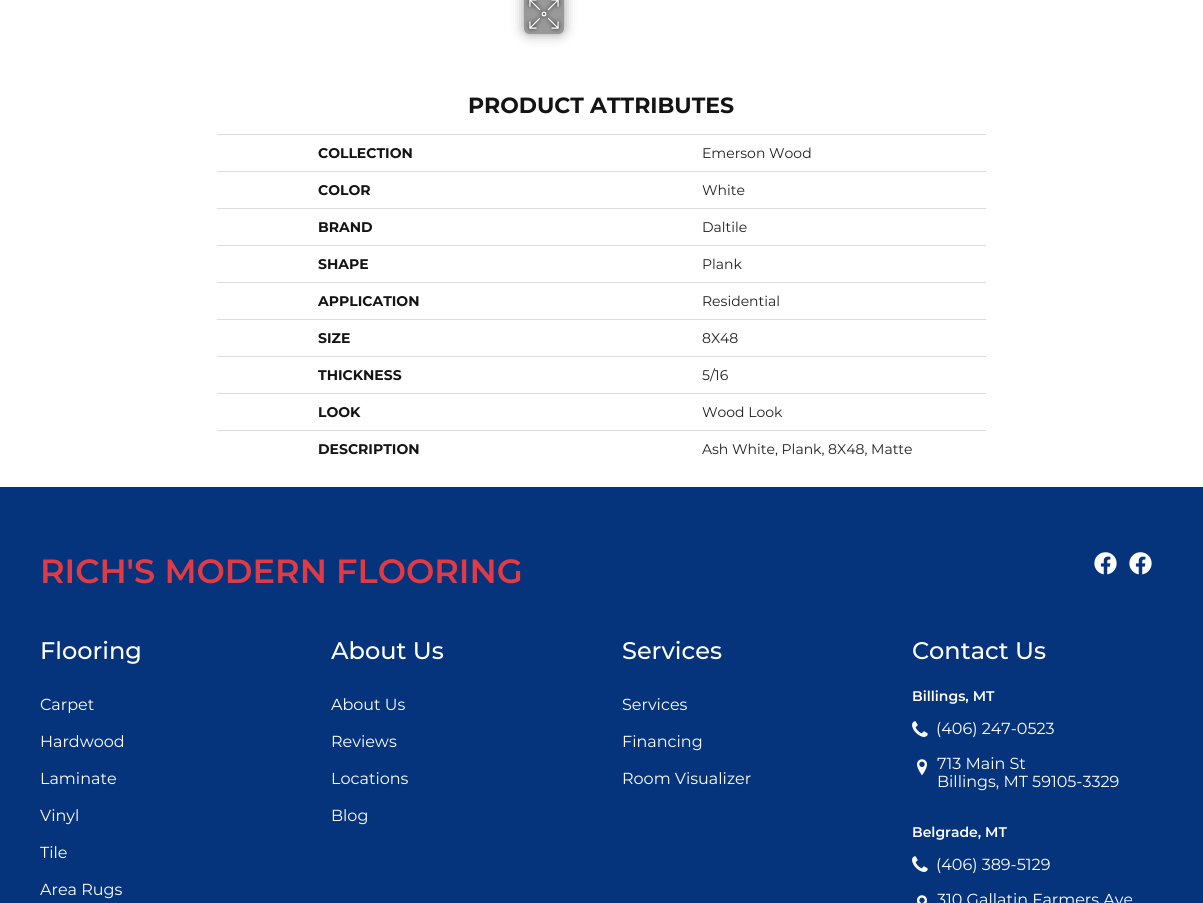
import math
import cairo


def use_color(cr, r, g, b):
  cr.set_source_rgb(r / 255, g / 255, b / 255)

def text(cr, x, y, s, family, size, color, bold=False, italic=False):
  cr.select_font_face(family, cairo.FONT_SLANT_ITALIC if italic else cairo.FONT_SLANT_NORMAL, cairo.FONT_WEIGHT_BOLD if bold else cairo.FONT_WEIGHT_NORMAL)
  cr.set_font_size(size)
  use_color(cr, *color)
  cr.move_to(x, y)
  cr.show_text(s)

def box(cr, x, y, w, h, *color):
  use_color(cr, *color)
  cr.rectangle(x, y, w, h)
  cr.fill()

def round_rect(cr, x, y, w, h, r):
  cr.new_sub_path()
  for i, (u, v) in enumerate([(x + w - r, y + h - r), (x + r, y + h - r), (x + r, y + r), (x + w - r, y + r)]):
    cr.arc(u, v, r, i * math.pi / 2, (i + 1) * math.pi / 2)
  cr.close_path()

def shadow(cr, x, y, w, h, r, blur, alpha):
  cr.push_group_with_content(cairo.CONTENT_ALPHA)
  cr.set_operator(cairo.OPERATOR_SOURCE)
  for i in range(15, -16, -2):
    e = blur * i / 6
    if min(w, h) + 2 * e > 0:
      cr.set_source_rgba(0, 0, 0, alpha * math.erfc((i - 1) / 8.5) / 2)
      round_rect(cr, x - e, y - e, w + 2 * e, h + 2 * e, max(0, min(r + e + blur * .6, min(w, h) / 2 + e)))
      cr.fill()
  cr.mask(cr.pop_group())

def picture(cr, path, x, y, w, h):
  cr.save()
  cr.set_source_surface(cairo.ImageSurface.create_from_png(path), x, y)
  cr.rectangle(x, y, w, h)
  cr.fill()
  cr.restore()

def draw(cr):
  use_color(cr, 255, 255, 255)
  cr.paint()
  cr.save()
  cr.set_fill_rule(cairo.FILL_RULE_EVEN_ODD)
  cr.new_path()
  cr.move_to(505, 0)
  cr.line_to(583, 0)
  cr.line_to(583, 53)
  cr.line_to(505, 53)
  cr.close_path()
  cr.move_to(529, -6)
  cr.line_to(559, -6)
  cr.curve_to(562, -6, 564, -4, 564, -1)
  cr.line_to(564, 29)
  cr.curve_to(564, 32, 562, 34, 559, 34)
  cr.line_to(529, 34)
  cr.curve_to(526, 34, 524, 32, 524, 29)
  cr.line_to(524, -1)
  cr.curve_to(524, -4, 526, -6, 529, -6)
  cr.close_path()
  cr.clip()
  use_color(cr, 0, 0, 0)
  shadow(cr, 524, -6, 40, 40, 5, 6, 0.41)
  cr.restore()
  cr.set_source_rgba(0, 0, 0, 0.4)
  round_rect(cr, 524, -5, 40, 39, 5)
  cr.fill()
  picture(cr, "img_01.png", 525, 0, 38, 33)
  box(cr, 217, 134, 769, 1, 221, 221, 221)
  box(cr, 217, 171, 769, 1, 221, 221, 221)
  box(cr, 217, 208, 769, 1, 221, 221, 221)
  box(cr, 217, 245, 769, 1, 221, 221, 221)
  box(cr, 217, 282, 769, 1, 221, 221, 221)
  box(cr, 217, 319, 769, 1, 221, 221, 221)
  box(cr, 217, 356, 769, 1, 221, 221, 221)
  box(cr, 217, 393, 769, 1, 221, 221, 221)
  box(cr, 217, 430, 769, 1, 221, 221, 221)
  box(cr, 0, 487, 1203, 416, 5, 52, 124)
  picture(cr, "img_02.png", 1094, 552, 23, 23)
  picture(cr, "img_02.png", 1129, 552, 23, 23)
  picture(cr, "img_03.png", 912, 721, 16, 16)
  picture(cr, "img_04.png", 917, 759, 10, 17)
  picture(cr, "img_03.png", 912, 856, 16, 16)
  picture(cr, "img_05.png", 917, 895, 10, 8)
  text(cr, 468, 113, "PRODUCT ATTRIBUTES", "Montserrat", 22, (20, 20, 20), bold=True)
  text(cr, 318, 158, "COLLECTION", "Montserrat", 14, (20, 20, 20), bold=True)
  text(cr, 702, 158, "Emerson Wood", "Montserrat", 14, (35, 31, 32))
  text(cr, 318, 195, "COLOR", "Montserrat", 14, (20, 20, 20), bold=True)
  text(cr, 702, 195, "White", "Montserrat", 14, (35, 31, 32))
  text(cr, 318, 232, "BRAND", "Montserrat", 14, (20, 20, 20), bold=True)
  text(cr, 702, 232, "Daltile", "Montserrat", 14, (35, 31, 32))
  text(cr, 318, 269, "SHAPE", "Montserrat", 14, (20, 20, 20), bold=True)
  text(cr, 702, 269, "Plank", "Montserrat", 14, (35, 31, 32))
  text(cr, 318, 306, "APPLICATION", "Montserrat", 14, (20, 20, 20), bold=True)
  text(cr, 702, 306, "Residential", "Montserrat", 14, (35, 31, 32))
  text(cr, 318, 343, "SIZE", "Montserrat", 14, (20, 20, 20), bold=True)
  text(cr, 702, 343, "8X48", "Montserrat", 14, (35, 31, 32))
  text(cr, 318, 380, "THICKNESS", "Montserrat", 14, (20, 20, 20), bold=True)
  text(cr, 702, 380, "5/16", "Montserrat", 14, (35, 31, 32))
  text(cr, 318, 417, "LOOK", "Montserrat", 14, (20, 20, 20), bold=True)
  text(cr, 702, 417, "Wood Look", "Montserrat", 14, (35, 31, 32))
  text(cr, 318, 454, "DESCRIPTION", "Montserrat", 14, (20, 20, 20), bold=True)
  text(cr, 702, 454, "Ash White, Plank, 8X48, Matte", "Montserrat", 14, (35, 31, 32))
  text(cr, 40, 583, "RICH'S MODERN FLOORING", "Montserrat SemiBold", 33.6, (224, 58, 68))
  text(cr, 40, 659, "Flooring", "Montserrat Medium", 24, (255, 255, 255))
  text(cr, 40, 710, "Carpet", "Montserrat", 16, (255, 255, 255))
  text(cr, 40, 747, "Hardwood", "Montserrat", 16, (255, 255, 255))
  text(cr, 40, 784, "Laminate", "Montserrat", 16, (255, 255, 255))
  text(cr, 40, 821, "Vinyl", "Montserrat", 16, (255, 255, 255))
  text(cr, 40, 858, "Tile", "Montserrat", 16, (255, 255, 255))
  text(cr, 40, 895, "Area Rugs", "Montserrat", 16, (255, 255, 255))
  text(cr, 331, 659, "About Us", "Montserrat Medium", 24, (255, 255, 255))
  text(cr, 331, 710, "About Us", "Montserrat", 16, (255, 255, 255))
  text(cr, 331, 747, "Reviews", "Montserrat", 16, (255, 255, 255))
  text(cr, 331, 784, "Locations", "Montserrat", 16, (255, 255, 255))
  text(cr, 331, 821, "Blog", "Montserrat", 16, (255, 255, 255))
  text(cr, 622, 659, "Services", "Montserrat Medium", 24, (255, 255, 255))
  text(cr, 622, 710, "Services", "Montserrat", 16, (255, 255, 255))
  text(cr, 622, 747, "Financing", "Montserrat", 16, (255, 255, 255))
  text(cr, 622, 784, "Room Visualizer", "Montserrat", 16, (255, 255, 255))
  text(cr, 912, 659, "Contact Us", "Montserrat Medium", 24, (255, 255, 255))
  text(cr, 912, 701, "Billings, MT", "Montserrat SemiBold", 14, (255, 255, 255))
  text(cr, 936, 734, "(406) 247-0523", "Montserrat", 16, (255, 255, 255))
  text(cr, 937, 769, "713 Main St", "Montserrat", 16, (255, 255, 255))
  text(cr, 937, 787, "Billings, MT 59105-3329", "Montserrat", 16, (255, 255, 255))
  text(cr, 912, 837, "Belgrade, MT", "Montserrat SemiBold", 14, (255, 255, 255))
  text(cr, 936, 870, "(406) 389-5129", "Montserrat", 16, (255, 255, 255))
  text(cr, 937, 905, "310 Gallatin Farmers Ave", "Montserrat", 16, (255, 255, 255))


surface = cairo.ImageSurface(cairo.FORMAT_RGB24, 1203, 903)
cr = cairo.Context(surface)
options = cairo.FontOptions()
options.set_hint_metrics(cairo.HINT_METRICS_OFF)
options.set_hint_style(cairo.HINT_STYLE_NONE)
cr.set_font_options(options)
cr.set_miter_limit(4)
draw(cr)
surface.write_to_png("out.png")
